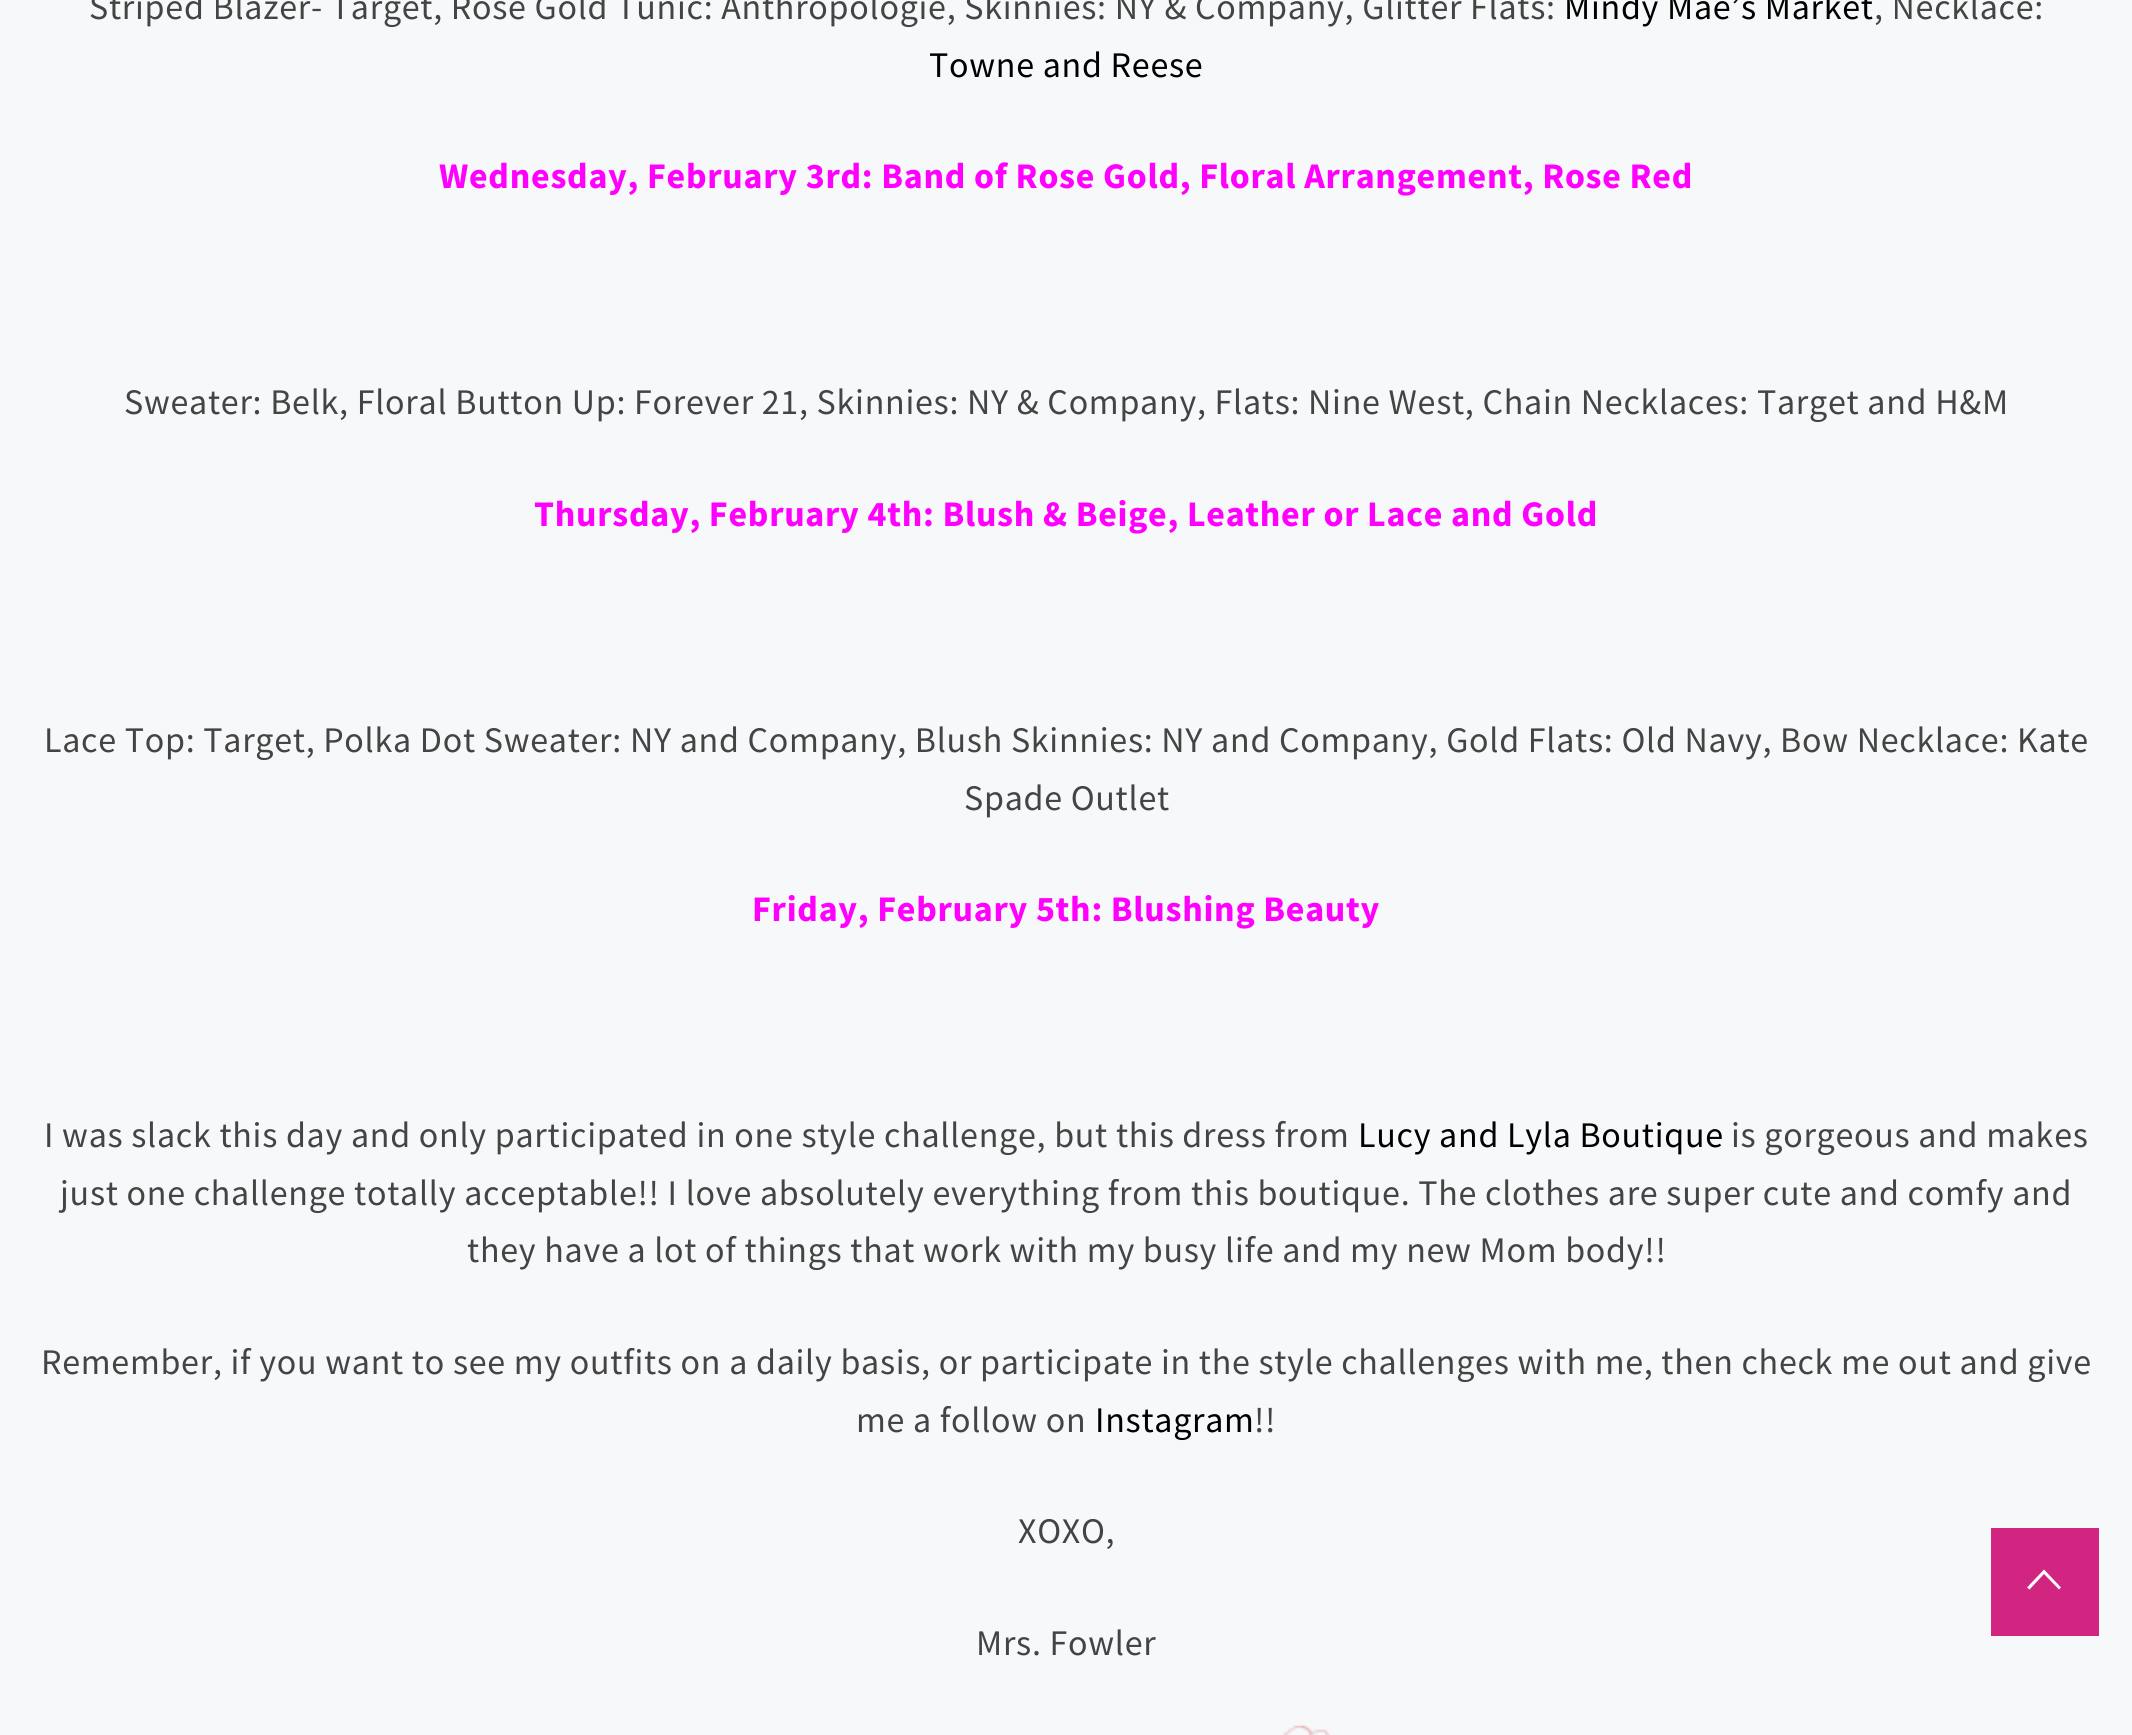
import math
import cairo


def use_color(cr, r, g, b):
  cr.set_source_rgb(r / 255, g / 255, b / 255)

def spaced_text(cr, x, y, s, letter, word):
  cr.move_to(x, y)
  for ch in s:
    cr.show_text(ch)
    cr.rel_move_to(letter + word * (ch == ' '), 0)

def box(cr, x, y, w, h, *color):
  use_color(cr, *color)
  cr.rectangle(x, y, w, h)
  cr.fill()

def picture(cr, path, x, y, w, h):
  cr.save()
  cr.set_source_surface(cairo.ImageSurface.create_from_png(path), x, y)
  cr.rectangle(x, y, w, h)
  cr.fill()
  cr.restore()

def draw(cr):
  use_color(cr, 246, 248, 249)
  cr.paint()
  picture(cr, "img_01.png", 1283, 1725, 47, 10)
  box(cr, 1991, 1528, 108, 108, 209, 37, 129)
  use_color(cr, 255, 255, 255)
  cr.new_path()
  cr.move_to(2059, 1589.5)
  cr.line_to(2044, 1574)
  cr.line_to(2029.5, 1589.5)
  cr.line_to(2027, 1587.5)
  cr.line_to(2044, 1569.5)
  cr.line_to(2061, 1587.5)
  cr.close_path()
  cr.fill()
  cr.select_font_face("Source Sans Pro")
  cr.set_font_size(36)
  use_color(cr, 68, 68, 68)
  spaced_text(cr, 89, 19, "Striped Blazer- Target, Rose Gold Tunic: Anthropologie, Skinnies: NY & Company, Glitter Flats:", 0.72, 0)
  use_color(cr, 0, 0, 0)
  spaced_text(cr, 1564, 19, "Mindy Mae’s Market", 0.72, 0)
  use_color(cr, 68, 68, 68)
  spaced_text(cr, 1874, 19, ", Necklace:", 0.72, 0)
  use_color(cr, 0, 0, 0)
  spaced_text(cr, 929, 77, "Towne and Reese", 0.72, 0)
  cr.select_font_face("Source Sans Pro", cairo.FONT_SLANT_NORMAL, cairo.FONT_WEIGHT_BOLD)
  use_color(cr, 255, 0, 255)
  spaced_text(cr, 439, 188, "Wednesday, February 3rd: Band of Rose Gold, Floral Arrangement, Rose Red", 0.72, 0)
  cr.select_font_face("Source Sans Pro")
  use_color(cr, 68, 68, 68)
  spaced_text(cr, 124, 414, "Sweater: Belk, Floral Button Up: Forever 21, Skinnies: NY & Company, Flats: Nine West, Chain Necklaces: Target and H&M", 0.72, 0)
  cr.select_font_face("Source Sans Pro", cairo.FONT_SLANT_NORMAL, cairo.FONT_WEIGHT_BOLD)
  use_color(cr, 255, 0, 255)
  spaced_text(cr, 534, 526, "Thursday, February 4th: Blush & Beige, Leather or Lace and Gold", 0.72, 0)
  cr.select_font_face("Source Sans Pro")
  use_color(cr, 68, 68, 68)
  spaced_text(cr, 44, 752, "Lace Top: Target, Polka Dot Sweater: NY and Company, Blush Skinnies: NY and Company, Gold Flats: Old Navy, Bow Necklace: Kate", 0.72, 0)
  spaced_text(cr, 964, 810, "Spade Outlet", 0.72, 0)
  cr.select_font_face("Source Sans Pro", cairo.FONT_SLANT_NORMAL, cairo.FONT_WEIGHT_BOLD)
  use_color(cr, 255, 0, 255)
  spaced_text(cr, 752, 921, "Friday, February 5th: Blushing Beauty", 0.72, 0)
  cr.select_font_face("Source Sans Pro")
  use_color(cr, 68, 68, 68)
  spaced_text(cr, 44, 1147, "I was slack this day and only participated in one style challenge, but this dress from", 0.72, 0)
  use_color(cr, 0, 0, 0)
  spaced_text(cr, 1358, 1147, "Lucy and Lyla Boutique", 0.72, 0)
  use_color(cr, 68, 68, 68)
  spaced_text(cr, 1731, 1147, "is gorgeous and makes", 0.72, 0)
  spaced_text(cr, 60, 1205, "just one challenge totally acceptable!! I love absolutely everything from this boutique. The clothes are super cute and comfy and", 0.72, 0)
  spaced_text(cr, 467, 1262, "they have a lot of things that work with my busy life and my new Mom body!!", 0.72, 0)
  spaced_text(cr, 41, 1374, "Remember, if you want to see my outfits on a daily basis, or participate in the style challenges with me, then check me out and give", 0.72, 0)
  spaced_text(cr, 856, 1432, "me a follow on", 0.72, 0)
  use_color(cr, 0, 0, 0)
  spaced_text(cr, 1095, 1432, "Instagram", 0.72, 0)
  use_color(cr, 68, 68, 68)
  spaced_text(cr, 1254, 1432, "!!", 0.72, 0)
  spaced_text(cr, 1018, 1543, "XOXO,", 0.72, 0)
  spaced_text(cr, 976, 1655, "Mrs. Fowler", 0.72, 0)


surface = cairo.ImageSurface(cairo.FORMAT_RGB24, 2132, 1735)
cr = cairo.Context(surface)
options = cairo.FontOptions()
options.set_hint_metrics(cairo.HINT_METRICS_OFF)
options.set_hint_style(cairo.HINT_STYLE_NONE)
cr.set_font_options(options)
cr.set_miter_limit(4)
draw(cr)
surface.write_to_png("out.png")
